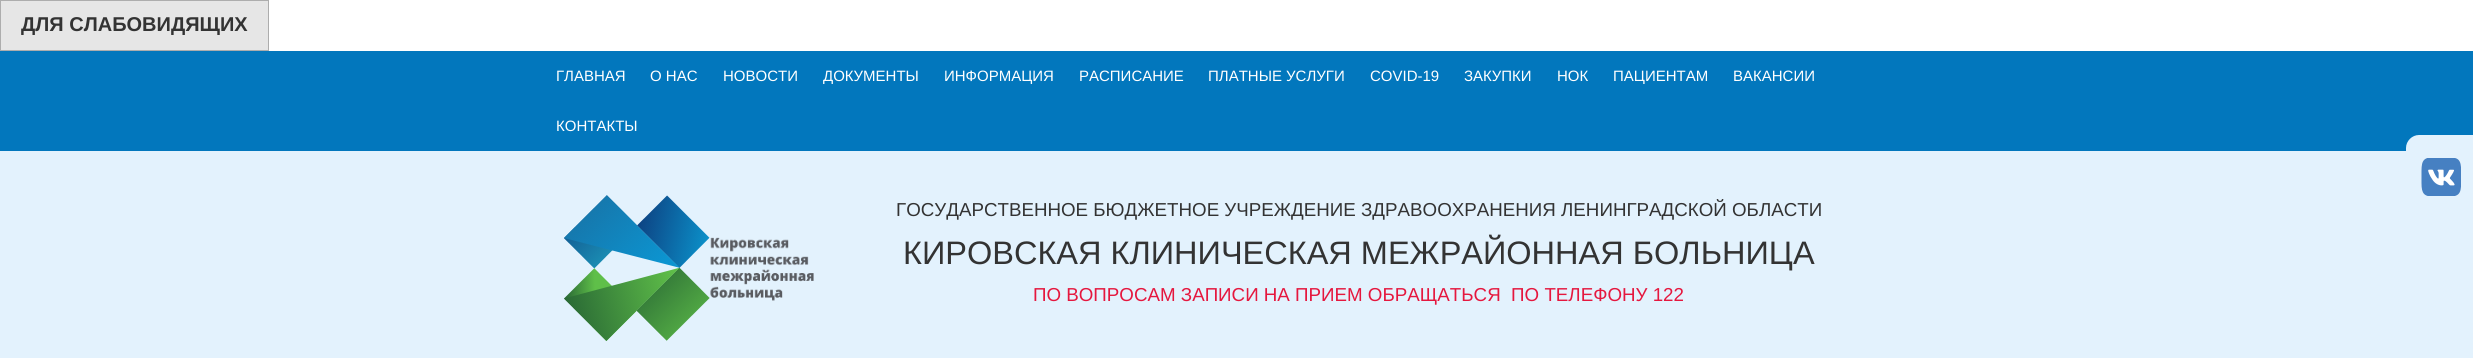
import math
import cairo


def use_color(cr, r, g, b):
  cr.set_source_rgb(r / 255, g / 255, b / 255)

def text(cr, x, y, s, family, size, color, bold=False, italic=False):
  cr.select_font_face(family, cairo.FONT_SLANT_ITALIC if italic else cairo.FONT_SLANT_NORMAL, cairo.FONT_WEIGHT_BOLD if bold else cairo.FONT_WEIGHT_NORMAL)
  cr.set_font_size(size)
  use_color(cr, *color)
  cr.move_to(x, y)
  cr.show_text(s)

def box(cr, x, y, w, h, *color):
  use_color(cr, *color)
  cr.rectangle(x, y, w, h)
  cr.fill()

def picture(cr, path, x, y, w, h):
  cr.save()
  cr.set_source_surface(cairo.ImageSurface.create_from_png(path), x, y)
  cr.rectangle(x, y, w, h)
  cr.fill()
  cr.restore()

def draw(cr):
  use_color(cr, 255, 255, 255)
  cr.paint()
  use_color(cr, 230, 230, 230)
  cr.rectangle(0.5, 0.5, 268, 50)
  cr.fill_preserve()
  use_color(cr, 173, 173, 173)
  cr.set_line_width(1)
  cr.stroke()
  box(cr, 0, 51, 2473, 100, 2, 119, 189)
  box(cr, 0, 151, 2473, 207, 227, 242, 253)
  picture(cr, "img_01.png", 564, 195, 250, 146)
  cr.new_path()
  cr.move_to(2419, 135)
  cr.line_to(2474, 135)
  cr.line_to(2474, 226)
  cr.line_to(2419, 226)
  cr.curve_to(2412, 226, 2406, 220, 2406, 213)
  cr.line_to(2406, 148)
  cr.curve_to(2406, 141, 2412, 135, 2419, 135)
  cr.close_path()
  cr.fill()
  picture(cr, "img_02.png", 2421, 158, 40, 38)
  text(cr, 21, 31, "ДЛЯ СЛАБОВИДЯЩИХ", "Liberation Sans", 20, (51, 51, 51), bold=True)
  text(cr, 556, 81, "ГЛАВНАЯ", "Liberation Sans", 15, (255, 255, 255))
  text(cr, 650, 81, "О НАС", "Liberation Sans", 15, (255, 255, 255))
  text(cr, 723, 81, "НОВОСТИ", "Liberation Sans", 15, (255, 255, 255))
  text(cr, 823, 81, "ДОКУМЕНТЫ", "Liberation Sans", 15, (255, 255, 255))
  text(cr, 944, 81, "ИНФОРМАЦИЯ", "Liberation Sans", 15, (255, 255, 255))
  text(cr, 1079, 81, "РАСПИСАНИЕ", "Liberation Sans", 15, (255, 255, 255))
  text(cr, 1208, 81, "ПЛАТНЫЕ УСЛУГИ", "Liberation Sans", 15, (255, 255, 255))
  text(cr, 1370, 81, "COVID-19", "Liberation Sans", 15, (255, 255, 255))
  text(cr, 1464, 81, "ЗАКУПКИ", "Liberation Sans", 15, (255, 255, 255))
  text(cr, 1557, 81, "НОК", "Liberation Sans", 15, (255, 255, 255))
  text(cr, 1613, 81, "ПАЦИЕНТАМ", "Liberation Sans", 15, (255, 255, 255))
  text(cr, 1733, 81, "ВАКАНСИИ", "Liberation Sans", 15, (255, 255, 255))
  text(cr, 556, 131, "КОНТАКТЫ", "Liberation Sans", 15, (255, 255, 255))
  text(cr, 896, 216, "ГОСУДАРСТВЕННОЕ БЮДЖЕТНОЕ УЧРЕЖДЕНИЕ ЗДРАВООХРАНЕНИЯ ЛЕНИНГРАДСКОЙ ОБЛАСТИ", "Liberation Sans", 18.75, (51, 51, 51))
  text(cr, 903, 264, "КИРОВСКАЯ КЛИНИЧЕСКАЯ МЕЖРАЙОННАЯ БОЛЬНИЦА", "Liberation Sans", 32.5, (51, 51, 51))
  text(cr, 1033, 301, "ПО ВОПРОСАМ ЗАПИСИ НА ПРИЕМ ОБРАЩАТЬСЯ  ПО ТЕЛЕФОНУ 122", "Liberation Sans", 18.75, (229, 23, 62))


surface = cairo.ImageSurface(cairo.FORMAT_RGB24, 2473, 358)
cr = cairo.Context(surface)
options = cairo.FontOptions()
options.set_hint_metrics(cairo.HINT_METRICS_OFF)
options.set_hint_style(cairo.HINT_STYLE_NONE)
cr.set_font_options(options)
cr.set_miter_limit(4)
draw(cr)
surface.write_to_png("out.png")
